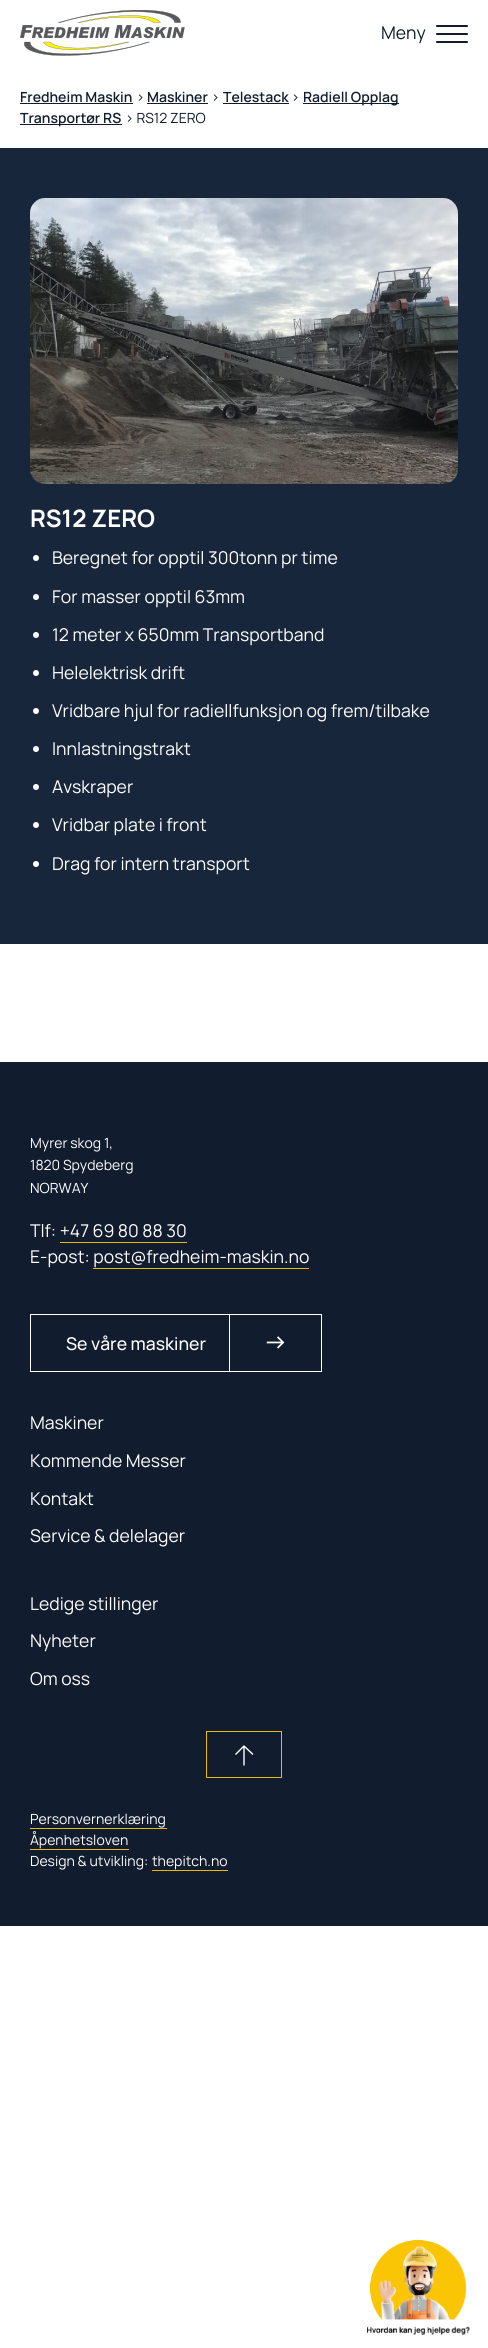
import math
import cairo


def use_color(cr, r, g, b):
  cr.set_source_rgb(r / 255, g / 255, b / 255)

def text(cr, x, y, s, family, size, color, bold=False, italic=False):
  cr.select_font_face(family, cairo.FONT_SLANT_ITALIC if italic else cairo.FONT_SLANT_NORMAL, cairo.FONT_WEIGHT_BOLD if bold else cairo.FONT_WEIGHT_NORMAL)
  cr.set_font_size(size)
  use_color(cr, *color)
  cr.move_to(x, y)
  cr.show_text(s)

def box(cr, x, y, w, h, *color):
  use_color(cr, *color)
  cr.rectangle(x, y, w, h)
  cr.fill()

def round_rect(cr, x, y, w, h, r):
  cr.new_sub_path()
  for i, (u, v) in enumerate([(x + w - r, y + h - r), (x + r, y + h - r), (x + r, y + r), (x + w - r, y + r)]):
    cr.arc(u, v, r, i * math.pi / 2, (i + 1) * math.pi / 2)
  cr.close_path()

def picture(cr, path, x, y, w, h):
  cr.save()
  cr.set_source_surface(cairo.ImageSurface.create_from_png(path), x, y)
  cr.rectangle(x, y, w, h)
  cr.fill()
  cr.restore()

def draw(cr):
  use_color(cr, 255, 255, 255)
  cr.paint()
  picture(cr, "img_01.png", 20, 10, 165, 46)
  use_color(cr, 17, 28, 46)
  round_rect(cr, 436, 25, 32, 2, 1)
  cr.fill()
  round_rect(cr, 436, 33, 32, 2, 1)
  cr.fill()
  round_rect(cr, 436, 41, 32, 2, 1)
  cr.fill()
  box(cr, 20, 103, 113, 1, 17, 28, 46)
  box(cr, 147, 103, 61, 1, 17, 28, 46)
  box(cr, 223, 103, 66, 1, 17, 28, 46)
  box(cr, 303, 103, 96, 1, 17, 28, 46)
  box(cr, 20, 124, 102, 1, 17, 28, 46)
  box(cr, 0, 148, 488, 796, 24, 38, 60)
  picture(cr, "img_02.png", 30, 198, 428, 286)
  use_color(cr, 254, 254, 254)
  cr.arc(36, 558, 3, 0, 2 * math.pi)
  cr.fill()
  cr.arc(36, 597, 3, 0, 2 * math.pi)
  cr.fill()
  cr.arc(36, 635, 3, 0, 2 * math.pi)
  cr.fill()
  cr.arc(36, 673, 3, 0, 2 * math.pi)
  cr.fill()
  cr.arc(36, 711, 3, 0, 2 * math.pi)
  cr.fill()
  cr.arc(36, 749, 3, 0, 2 * math.pi)
  cr.fill()
  cr.arc(36, 787, 3, 0, 2 * math.pi)
  cr.fill()
  cr.arc(36, 825, 3, 0, 2 * math.pi)
  cr.fill()
  cr.arc(36, 864, 3, 0, 2 * math.pi)
  cr.fill()
  box(cr, 0, 1062, 488, 864, 17, 28, 46)
  box(cr, 60, 1242, 127, 1, 235, 187, 0)
  box(cr, 93, 1268, 216, 1, 235, 187, 0)
  cr.rectangle(30.5, 1314.5, 291, 57)
  use_color(cr, 254, 254, 254)
  cr.set_line_width(1)
  cr.stroke()
  box(cr, 229, 1315, 1, 56, 254, 254, 254)
  picture(cr, "img_03.png", 266, 1336, 19, 13)
  cr.rectangle(206.5, 1731.5, 75, 46)
  use_color(cr, 235, 187, 0)
  cr.stroke()
  cr.new_path()
  cr.move_to(235.5, 1754.5)
  cr.line_to(244, 1746)
  cr.line_to(253, 1754.5)
  cr.move_to(244, 1765.5)
  cr.line_to(244, 1746)
  use_color(cr, 254, 254, 254)
  cr.set_line_width(1.4)
  cr.set_line_join(cairo.LINE_JOIN_ROUND)
  cr.stroke()
  box(cr, 30, 1828, 137, 1, 235, 187, 0)
  box(cr, 30, 1849, 99, 1, 235, 187, 0)
  box(cr, 152, 1870, 76, 1, 235, 187, 0)
  picture(cr, "img_04.png", 367, 2239, 103, 96)
  text(cr, 381, 39, "Meny", "Manrope", 17.6, (17, 28, 46))
  text(cr, 20, 102, "Fredheim Maskin", "Manrope SemiBold", 14, (17, 28, 46))
  text(cr, 136, 102, ">", "Manrope", 14, (17, 28, 46))
  text(cr, 147, 102, "Maskiner", "Manrope SemiBold", 14, (17, 28, 46))
  text(cr, 211, 102, ">", "Manrope", 14, (17, 28, 46))
  text(cr, 223, 102, "Telestack", "Manrope SemiBold", 14, (17, 28, 46))
  text(cr, 291, 102, ">", "Manrope", 14, (17, 28, 46))
  text(cr, 303, 102, "Radiell Opplag", "Manrope SemiBold", 14, (17, 28, 46))
  text(cr, 20, 123, "Transportør RS", "Manrope SemiBold", 14, (17, 28, 46))
  text(cr, 125, 123, "> RS12 ZERO", "Manrope", 14, (17, 28, 46))
  text(cr, 30, 527, "RS12 ZERO", "Manrope", 24, (254, 254, 254), bold=True)
  text(cr, 52, 564, "Beregnet for opptil 300tonn pr time", "Manrope", 17.6, (254, 254, 254))
  text(cr, 52, 603, "For masser opptil 63mm", "Manrope", 17.6, (254, 254, 254))
  text(cr, 52, 641, "12 meter x 650mm Transportband", "Manrope", 17.6, (254, 254, 254))
  text(cr, 52, 679, "Helelektrisk drift", "Manrope", 17.6, (254, 254, 254))
  text(cr, 52, 717, "Vridbare hjul for radiellfunksjon og frem/tilbake", "Manrope", 17.6, (254, 254, 254))
  text(cr, 52, 755, "Innlastningstrakt", "Manrope", 17.6, (254, 254, 254))
  text(cr, 52, 793, "Avskraper", "Manrope", 17.6, (254, 254, 254))
  text(cr, 52, 831, "Vridbar plate i front", "Manrope", 17.6, (254, 254, 254))
  text(cr, 52, 870, "Drag for intern transport", "Manrope", 17.6, (254, 254, 254))
  text(cr, 30, 1148, "Myrer skog 1,", "Manrope", 14, (254, 254, 254))
  text(cr, 30, 1170, "1820 Spydeberg", "Manrope", 14, (254, 254, 254))
  text(cr, 30, 1193, "NORWAY", "Manrope", 14, (254, 254, 254))
  text(cr, 30, 1237, "Tlf: +47 69 80 88 30", "Manrope", 17.6, (254, 254, 254))
  text(cr, 30, 1263, "E-post: post@fredheim-maskin.no", "Manrope", 17.6, (254, 254, 254))
  text(cr, 66, 1350, "Se våre maskiner", "Manrope Medium", 17.6, (254, 254, 254))
  text(cr, 30, 1429, "Maskiner", "Manrope", 17.6, (254, 254, 254))
  text(cr, 30, 1467, "Kommende Messer", "Manrope", 17.6, (254, 254, 254))
  text(cr, 30, 1505, "Kontakt", "Manrope", 17.6, (254, 254, 254))
  text(cr, 30, 1542, "Service & delelager", "Manrope", 17.6, (254, 254, 254))
  text(cr, 30, 1610, "Ledige stillinger", "Manrope", 17.6, (254, 254, 254))
  text(cr, 30, 1647, "Nyheter", "Manrope", 17.6, (254, 254, 254))
  text(cr, 30, 1685, "Om oss", "Manrope", 17.6, (254, 254, 254))
  text(cr, 30, 1824, "Personvernerklæring", "Manrope", 14, (254, 254, 254))
  text(cr, 30, 1845, "Åpenhetsloven", "Manrope", 14, (254, 254, 254))
  text(cr, 30, 1866, "Design & utvikling:", "Manrope", 14, (254, 254, 254))
  text(cr, 152, 1866, "thepitch.no", "Manrope", 14, (254, 254, 254))


surface = cairo.ImageSurface(cairo.FORMAT_RGB24, 488, 2348)
cr = cairo.Context(surface)
options = cairo.FontOptions()
options.set_hint_metrics(cairo.HINT_METRICS_OFF)
options.set_hint_style(cairo.HINT_STYLE_NONE)
cr.set_font_options(options)
cr.set_miter_limit(4)
draw(cr)
surface.write_to_png("out.png")
